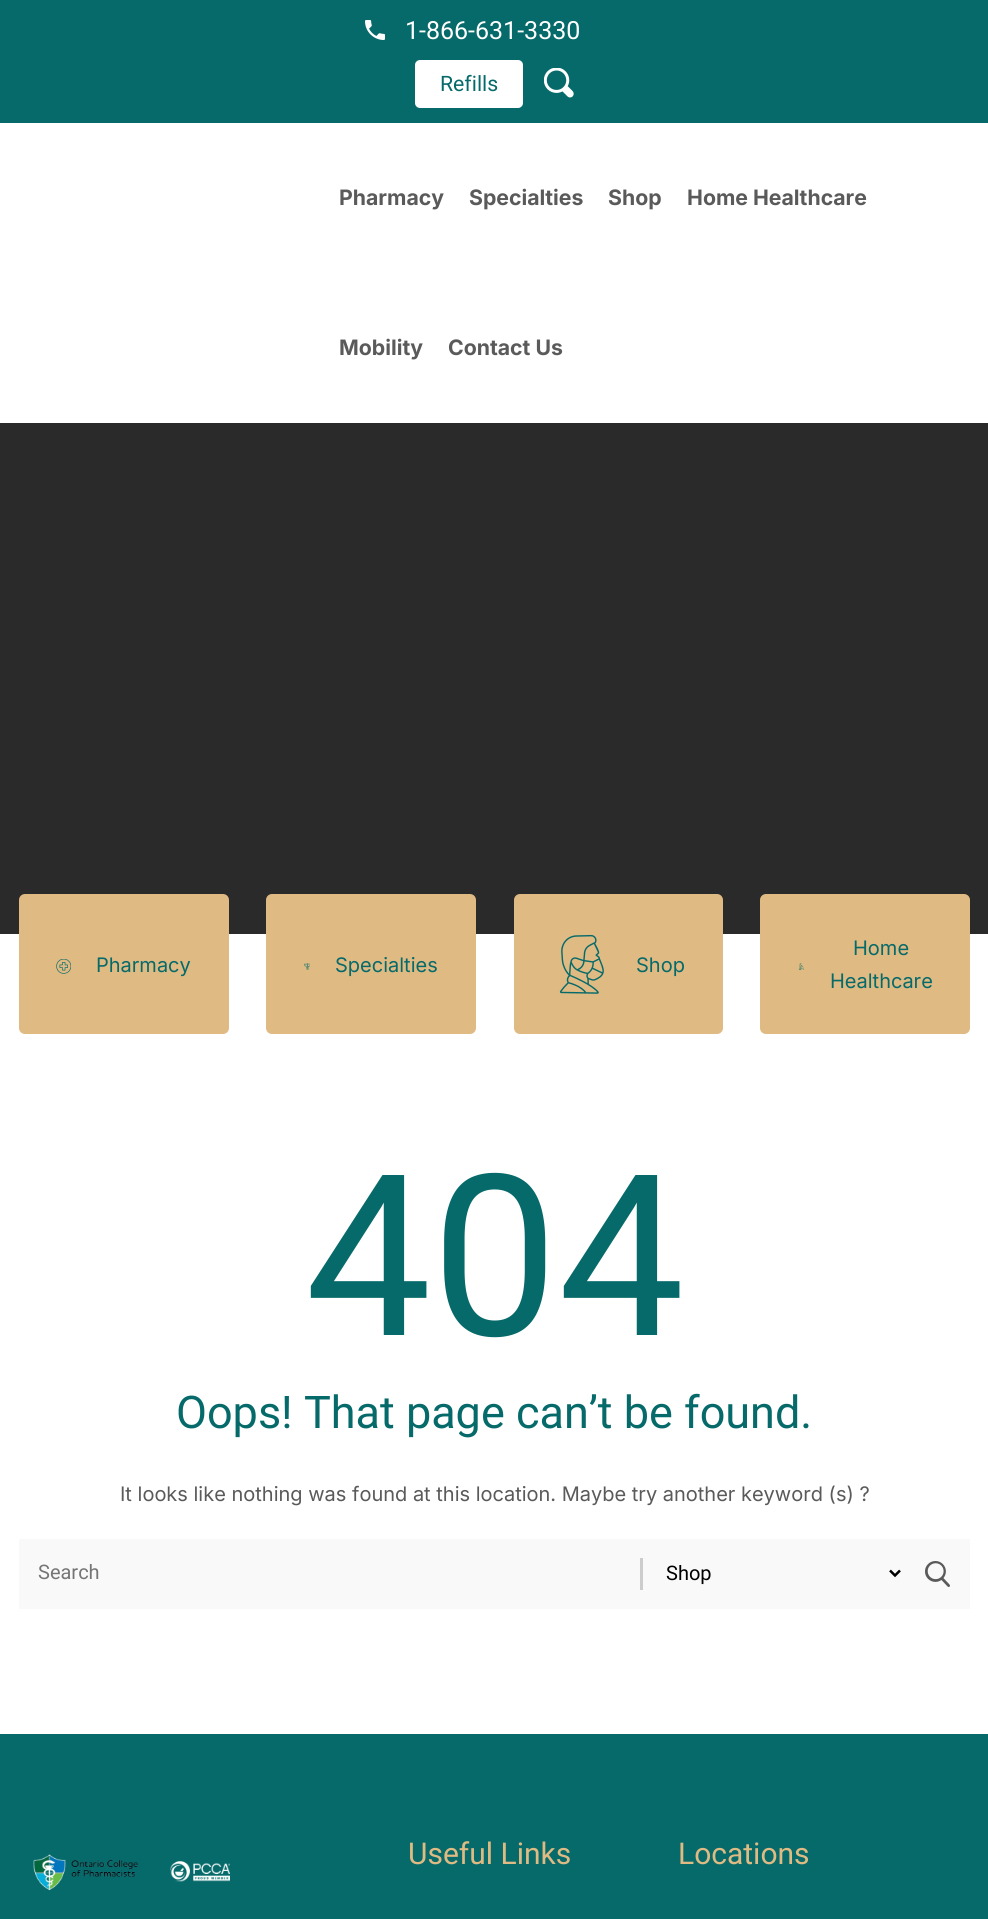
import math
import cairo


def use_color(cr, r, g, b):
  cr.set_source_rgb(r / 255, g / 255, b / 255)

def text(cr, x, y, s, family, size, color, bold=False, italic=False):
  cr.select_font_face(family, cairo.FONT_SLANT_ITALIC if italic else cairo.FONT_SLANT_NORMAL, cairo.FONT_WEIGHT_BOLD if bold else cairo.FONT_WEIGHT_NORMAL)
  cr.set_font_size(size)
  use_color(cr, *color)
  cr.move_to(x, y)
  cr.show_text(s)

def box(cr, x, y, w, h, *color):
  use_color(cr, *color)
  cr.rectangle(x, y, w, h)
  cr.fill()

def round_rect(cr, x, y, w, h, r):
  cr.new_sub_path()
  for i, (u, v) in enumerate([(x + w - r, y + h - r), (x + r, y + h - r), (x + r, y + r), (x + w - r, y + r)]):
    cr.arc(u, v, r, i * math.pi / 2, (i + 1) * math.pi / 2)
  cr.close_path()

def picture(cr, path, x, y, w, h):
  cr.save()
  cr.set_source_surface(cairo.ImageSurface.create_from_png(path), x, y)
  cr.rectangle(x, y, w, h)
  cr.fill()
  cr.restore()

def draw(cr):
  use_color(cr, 255, 255, 255)
  cr.paint()
  box(cr, 0, 0, 988, 123, 7, 106, 106)
  picture(cr, "img_01.png", 365, 20, 20, 20)
  use_color(cr, 255, 255, 255)
  round_rect(cr, 415, 60, 108, 48, 5)
  cr.fill()
  picture(cr, "img_02.png", 544, 68, 30, 30)
  box(cr, 0, 423, 988, 511, 42, 42, 42)
  use_color(cr, 223, 186, 130)
  round_rect(cr, 19, 894, 210, 140, 6)
  cr.fill()
  picture(cr, "img_03.png", 56, 959, 15, 15)
  round_rect(cr, 266, 894, 210, 140, 6)
  cr.fill()
  picture(cr, "img_04.png", 304, 963, 6, 7)
  round_rect(cr, 514, 894, 209, 140, 6)
  cr.fill()
  picture(cr, "img_05.png", 559, 934, 45, 60)
  round_rect(cr, 760, 894, 210, 140, 6)
  cr.fill()
  picture(cr, "img_06.png", 798, 963, 6, 7)
  box(cr, 19, 1539, 951, 70, 249, 249, 249)
  box(cr, 640, 1558, 3, 32, 204, 204, 204)
  cr.new_path()
  cr.move_to(890, 1570.5)
  cr.line_to(895, 1575.5)
  cr.line_to(900, 1570.5)
  use_color(cr, 0, 0, 0)
  cr.set_line_width(2.5)
  cr.stroke()
  picture(cr, "img_07.png", 925, 1561, 25, 26)
  box(cr, 0, 1734, 988, 185, 7, 106, 106)
  picture(cr, "img_08.png", 33, 1854, 105, 37)
  picture(cr, "img_09.png", 170, 1861, 60, 21)
  text(cr, 405, 39, "1-866-631-3330", "Roboto", 25, (255, 255, 255))
  text(cr, 440, 91, "Refills", "Roboto", 21.25, (7, 106, 106))
  text(cr, 339, 205, "Pharmacy", "Inter", 21.25, (90, 90, 90), bold=True)
  text(cr, 469, 205, "Specialties", "Inter", 21.25, (90, 90, 90), bold=True)
  text(cr, 608, 205, "Shop", "Inter", 21.25, (90, 90, 90), bold=True)
  text(cr, 687, 205, "Home Healthcare", "Inter", 21.25, (90, 90, 90), bold=True)
  text(cr, 339, 355, "Mobility", "Inter", 21.25, (90, 90, 90), bold=True)
  text(cr, 448, 355, "Contact Us", "Inter", 21.25, (90, 90, 90), bold=True)
  text(cr, 96, 972, "Pharmacy", "Inter", 20, (7, 106, 106))
  text(cr, 335, 972, "Specialties", "Inter", 20, (7, 106, 106))
  text(cr, 636, 972, "Shop", "Inter", 20, (7, 106, 106))
  text(cr, 853, 955, "Home", "Inter", 20, (7, 106, 106))
  text(cr, 830, 988, "Healthcare", "Inter", 20, (7, 106, 106))
  text(cr, 305, 1335, "404", "Roboto", 225, (7, 106, 106))
  text(cr, 176, 1428, "Oops! That page can’t be found.", "Roboto", 45, (7, 106, 106))
  text(cr, 120, 1501, "It looks like nothing was found at this location. Maybe try another keyword (s) ?", "Inter", 20, (90, 90, 90))
  text(cr, 38, 1579, "Search", "Roboto", 20, (117, 117, 117))
  text(cr, 666, 1580, "Shop", "Roboto", 20, (0, 0, 0))
  text(cr, 408, 1864, "Useful Links", "Roboto", 30, (223, 186, 130))
  text(cr, 678, 1864, "Locations", "Roboto", 30, (223, 186, 130))


surface = cairo.ImageSurface(cairo.FORMAT_RGB24, 988, 1919)
cr = cairo.Context(surface)
options = cairo.FontOptions()
options.set_hint_metrics(cairo.HINT_METRICS_OFF)
options.set_hint_style(cairo.HINT_STYLE_NONE)
cr.set_font_options(options)
cr.set_miter_limit(4)
draw(cr)
surface.write_to_png("out.png")
